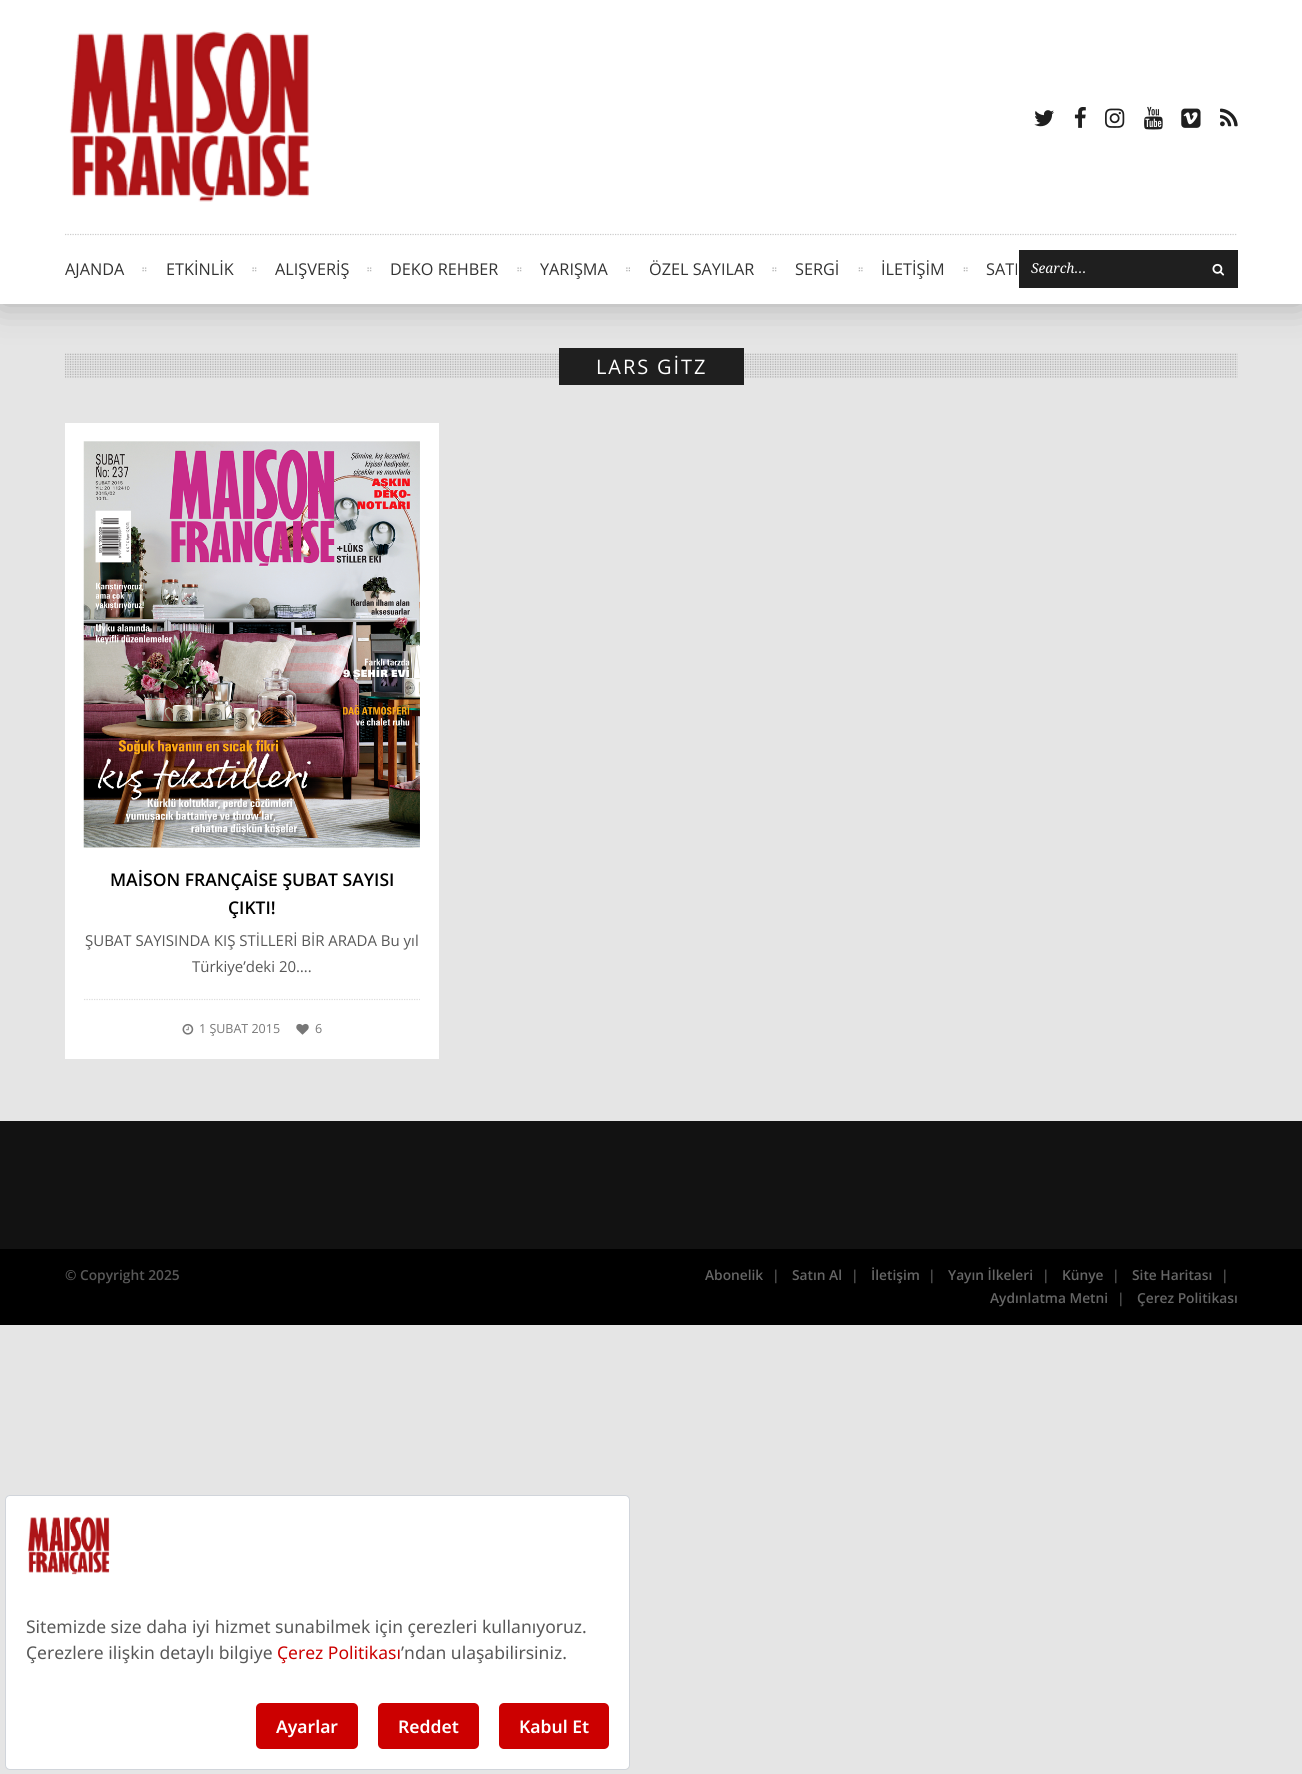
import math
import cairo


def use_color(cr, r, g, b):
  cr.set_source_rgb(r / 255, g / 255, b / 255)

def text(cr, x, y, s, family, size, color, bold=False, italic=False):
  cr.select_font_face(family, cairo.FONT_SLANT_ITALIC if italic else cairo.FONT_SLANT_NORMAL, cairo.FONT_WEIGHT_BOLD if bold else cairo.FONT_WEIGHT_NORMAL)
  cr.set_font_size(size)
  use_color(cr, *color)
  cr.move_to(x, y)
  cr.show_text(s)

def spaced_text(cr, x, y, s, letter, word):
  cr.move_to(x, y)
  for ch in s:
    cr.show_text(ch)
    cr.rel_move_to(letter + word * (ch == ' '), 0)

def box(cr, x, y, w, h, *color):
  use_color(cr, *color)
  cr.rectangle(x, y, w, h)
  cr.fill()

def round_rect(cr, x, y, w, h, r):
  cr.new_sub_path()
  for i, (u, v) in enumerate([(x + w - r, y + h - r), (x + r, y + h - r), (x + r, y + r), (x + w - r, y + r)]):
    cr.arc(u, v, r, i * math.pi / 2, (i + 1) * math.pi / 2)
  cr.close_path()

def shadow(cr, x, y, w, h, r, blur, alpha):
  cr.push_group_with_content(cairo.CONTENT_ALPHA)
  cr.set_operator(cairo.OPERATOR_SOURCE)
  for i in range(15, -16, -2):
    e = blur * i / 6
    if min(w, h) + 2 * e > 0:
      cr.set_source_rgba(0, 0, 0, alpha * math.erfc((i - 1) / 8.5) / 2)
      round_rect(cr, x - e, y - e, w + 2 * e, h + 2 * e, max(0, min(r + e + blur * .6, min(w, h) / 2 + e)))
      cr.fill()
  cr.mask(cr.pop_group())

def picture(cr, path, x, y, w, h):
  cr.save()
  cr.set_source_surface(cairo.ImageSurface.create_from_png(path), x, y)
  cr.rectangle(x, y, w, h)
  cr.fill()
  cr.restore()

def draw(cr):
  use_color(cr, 229, 229, 229)
  cr.paint()
  use_color(cr, 0, 0, 0)
  shadow(cr, 0, 0, 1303, 304, 0, 19, 0.25)
  box(cr, 0, 0, 1302, 304, 255, 255, 255)
  picture(cr, "img_01.png", 69, 31, 240, 171)
  picture(cr, "img_02.png", 1034, 110, 20, 17)
  picture(cr, "img_03.png", 1074, 107, 12, 21)
  picture(cr, "img_04.png", 1105, 108, 20, 20)
  picture(cr, "img_05.png", 1144, 106, 19, 24)
  picture(cr, "img_06.png", 1181, 108, 20, 20)
  picture(cr, "img_07.png", 1220, 108, 18, 19)
  cr.new_path()
  cr.move_to(65, 234.5)
  cr.line_to(1237.5, 234.5)
  use_color(cr, 204, 204, 204)
  cr.set_line_width(1.2)
  cr.set_dash([1.25, 1.25])
  cr.stroke()
  picture(cr, "img_08.png", 142, 267, 5, 5)
  picture(cr, "img_08.png", 252, 267, 5, 5)
  picture(cr, "img_08.png", 367, 267, 5, 5)
  picture(cr, "img_08.png", 517, 267, 5, 5)
  picture(cr, "img_09.png", 626, 267, 4, 5)
  picture(cr, "img_08.png", 772, 267, 5, 5)
  picture(cr, "img_10.png", 858, 267, 5, 5)
  picture(cr, "img_10.png", 963, 267, 5, 5)
  box(cr, 1019, 250, 219, 38, 31, 31, 31)
  picture(cr, "img_11.png", 1212, 263, 13, 13)
  picture(cr, "img_12.png", 65, 353, 1173, 25)
  box(cr, 559, 348, 185, 37, 31, 31, 31)
  box(cr, 65, 423, 374, 636, 255, 255, 255)
  picture(cr, "img_13.png", 83, 441, 337, 407)
  cr.new_path()
  cr.move_to(84, 999.5)
  cr.line_to(420, 999.5)
  use_color(cr, 221, 221, 221)
  cr.stroke()
  picture(cr, "img_14.png", 182, 1023, 12, 12)
  picture(cr, "img_15.png", 296, 1023, 13, 12)
  box(cr, 0, 1121, 1302, 128, 18, 18, 18)
  box(cr, 0, 1249, 1302, 76, 0, 0, 0)
  use_color(cr, 255, 255, 255)
  round_rect(cr, 5.5, 1495.5, 624, 274, 4.5)
  cr.fill_preserve()
  use_color(cr, 209, 213, 219)
  cr.set_line_width(1)
  cr.set_dash([])
  cr.stroke()
  picture(cr, "img_16.png", 28, 1516, 82, 59)
  use_color(cr, 204, 0, 0)
  round_rect(cr, 256, 1703, 102, 46, 5)
  cr.fill()
  round_rect(cr, 378, 1703, 101, 46, 5)
  cr.fill()
  round_rect(cr, 499, 1703, 110, 46, 5)
  cr.fill()
  text(cr, 65, 275, "AJANDA", "Open Sans", 16.25, (51, 51, 51))
  text(cr, 166, 275, "ETKİNLİK", "Open Sans", 16.25, (51, 51, 51))
  text(cr, 275, 275, "ALIŞVERİŞ", "Open Sans", 16.25, (51, 51, 51))
  text(cr, 390, 275, "DEKO REHBER", "Open Sans", 16.25, (51, 51, 51))
  text(cr, 540, 275, "YARIŞMA", "Open Sans", 16.25, (51, 51, 51))
  text(cr, 649, 275, "ÖZEL SAYILAR", "Open Sans", 16.25, (51, 51, 51))
  text(cr, 795, 275, "SERGİ", "Open Sans", 16.25, (51, 51, 51))
  text(cr, 881, 275, "İLETİŞİM", "Open Sans", 16.25, (51, 51, 51))
  text(cr, 986, 275, "SATI", "Open Sans", 16.25, (51, 51, 51))
  text(cr, 1031, 273, "Search...", "Droid Serif", 13.75, (255, 255, 255), italic=True)
  cr.select_font_face("Open Sans")
  cr.set_font_size(20)
  spaced_text(cr, 596, 374, "LARS GİTZ", 1.9, 0)
  text(cr, 110, 886, "MAİSON FRANÇAİSE ŞUBAT SAYISI", "Open Sans SemiBold", 17.5, (0, 0, 0))
  text(cr, 228, 914, "ÇIKTI!", "Open Sans SemiBold", 17.5, (0, 0, 0))
  text(cr, 85, 946, "ŞUBAT SAYISINDA KIŞ STİLLERİ BİR ARADA Bu yıl", "Open Sans", 15, (88, 88, 88))
  text(cr, 192, 972, "Türkiye’deki 20….", "Open Sans", 15, (88, 88, 88))
  text(cr, 199, 1033, "1 ŞUBAT 2015", "Open Sans", 12.5, (119, 119, 119))
  text(cr, 315, 1033, "6", "Open Sans", 12.5, (119, 119, 119))
  text(cr, 65, 1280, "© Copyright 2025", "Open Sans SemiBold", 13.75, (88, 88, 88))
  text(cr, 705, 1280, "Abonelik", "Open Sans SemiBold", 13.75, (102, 102, 102))
  text(cr, 772, 1280, "|", "Open Sans SemiBold", 13.75, (88, 88, 88))
  text(cr, 792, 1280, "Satın Al", "Open Sans SemiBold", 13.75, (102, 102, 102))
  text(cr, 851, 1280, "|", "Open Sans SemiBold", 13.75, (88, 88, 88))
  text(cr, 871, 1280, "İletişim", "Open Sans SemiBold", 13.75, (102, 102, 102))
  text(cr, 928, 1280, "|", "Open Sans SemiBold", 13.75, (88, 88, 88))
  text(cr, 948, 1280, "Yayın İlkeleri", "Open Sans SemiBold", 13.75, (102, 102, 102))
  text(cr, 1042, 1280, "|", "Open Sans SemiBold", 13.75, (88, 88, 88))
  text(cr, 1062, 1280, "Künye", "Open Sans SemiBold", 13.75, (102, 102, 102))
  text(cr, 1112, 1280, "|", "Open Sans SemiBold", 13.75, (88, 88, 88))
  text(cr, 1132, 1280, "Site Haritası", "Open Sans SemiBold", 13.75, (102, 102, 102))
  text(cr, 1221, 1280, "|", "Open Sans SemiBold", 13.75, (88, 88, 88))
  text(cr, 990, 1303, "Aydınlatma Metni", "Open Sans SemiBold", 13.75, (102, 102, 102))
  text(cr, 1117, 1303, "|", "Open Sans SemiBold", 13.75, (88, 88, 88))
  text(cr, 1137, 1303, "Çerez Politikası", "Open Sans SemiBold", 13.75, (102, 102, 102))
  text(cr, 26, 1633, "Sitemizde size daha iyi hizmet sunabilmek için çerezleri kullanıyoruz.", "Noto Sans", 17.5, (88, 88, 88))
  text(cr, 26, 1659, "Çerezlere ilişkin detaylı bilgiye", "Noto Sans", 17.5, (88, 88, 88))
  text(cr, 277, 1659, "Çerez Politikası", "Noto Sans", 17.5, (204, 0, 0))
  text(cr, 401, 1659, "’ndan ulaşabilirsiniz.", "Noto Sans", 17.5, (88, 88, 88))
  text(cr, 276, 1733, "Ayarlar", "Noto Sans SemiBold", 17.5, (255, 255, 255))
  text(cr, 398, 1733, "Reddet", "Noto Sans SemiBold", 17.5, (255, 255, 255))
  text(cr, 519, 1733, "Kabul Et", "Noto Sans SemiBold", 17.5, (255, 255, 255))


surface = cairo.ImageSurface(cairo.FORMAT_RGB24, 1302, 1774)
cr = cairo.Context(surface)
options = cairo.FontOptions()
options.set_hint_metrics(cairo.HINT_METRICS_OFF)
options.set_hint_style(cairo.HINT_STYLE_NONE)
cr.set_font_options(options)
cr.set_miter_limit(4)
draw(cr)
surface.write_to_png("out.png")
